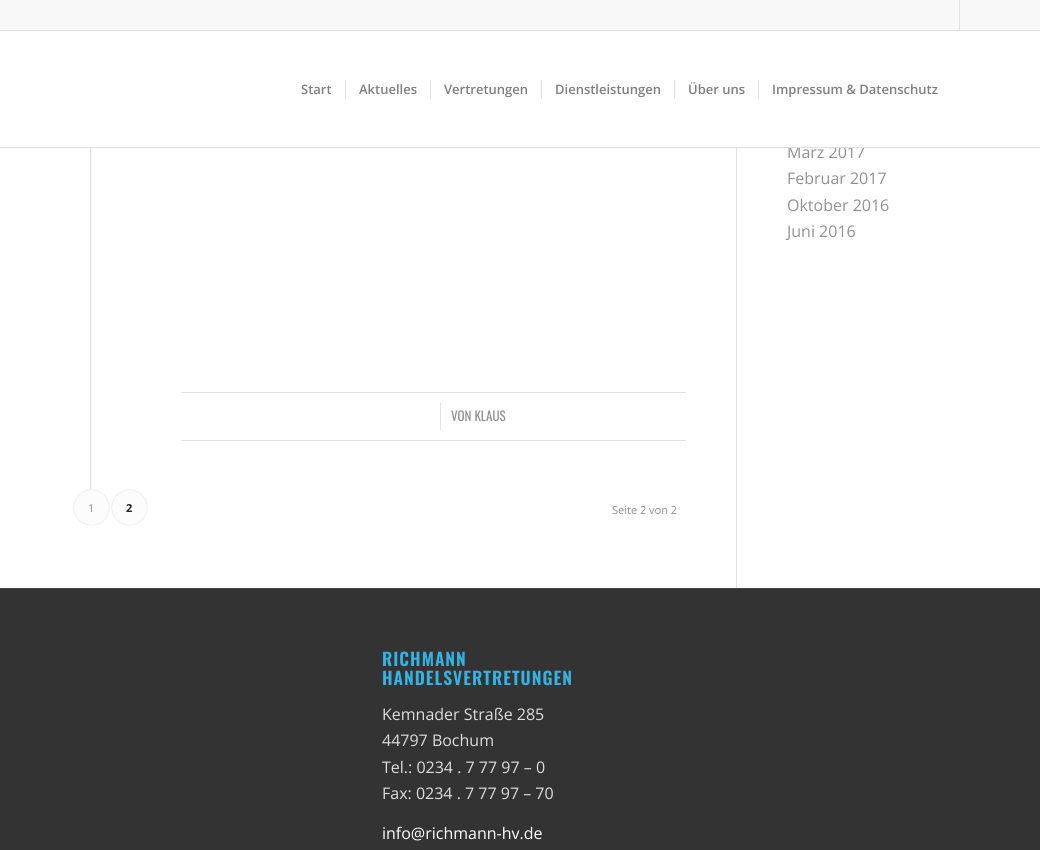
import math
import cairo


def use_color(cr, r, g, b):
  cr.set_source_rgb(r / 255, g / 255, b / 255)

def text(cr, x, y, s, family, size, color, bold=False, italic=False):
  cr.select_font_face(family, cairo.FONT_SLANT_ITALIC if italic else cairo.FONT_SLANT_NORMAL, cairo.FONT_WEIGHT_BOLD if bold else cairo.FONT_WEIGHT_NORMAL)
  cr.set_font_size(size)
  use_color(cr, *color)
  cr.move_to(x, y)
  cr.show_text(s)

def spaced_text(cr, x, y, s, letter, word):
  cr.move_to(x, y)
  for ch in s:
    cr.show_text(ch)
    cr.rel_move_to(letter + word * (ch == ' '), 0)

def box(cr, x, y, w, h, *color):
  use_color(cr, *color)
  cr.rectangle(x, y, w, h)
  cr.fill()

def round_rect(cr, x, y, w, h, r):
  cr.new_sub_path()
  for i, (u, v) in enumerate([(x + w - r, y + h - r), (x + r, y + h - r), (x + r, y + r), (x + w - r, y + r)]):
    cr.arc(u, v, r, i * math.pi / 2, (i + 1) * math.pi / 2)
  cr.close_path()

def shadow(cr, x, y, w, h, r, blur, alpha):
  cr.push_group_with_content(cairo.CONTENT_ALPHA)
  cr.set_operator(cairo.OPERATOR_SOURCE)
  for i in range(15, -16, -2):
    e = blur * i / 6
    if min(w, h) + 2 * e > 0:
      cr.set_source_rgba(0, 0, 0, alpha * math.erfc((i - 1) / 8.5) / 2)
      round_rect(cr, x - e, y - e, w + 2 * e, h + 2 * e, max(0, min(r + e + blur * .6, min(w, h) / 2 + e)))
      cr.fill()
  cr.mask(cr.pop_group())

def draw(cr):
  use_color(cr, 255, 255, 255)
  cr.paint()
  box(cr, 0, 0, 1040, 30, 248, 248, 248)
  box(cr, 0, 30, 1040, 1, 225, 225, 225)
  box(cr, 959, 0, 1, 30, 225, 225, 225)
  box(cr, 736, 31, 1, 557, 225, 225, 225)
  box(cr, 90, 31, 1, 458, 225, 225, 225)
  box(cr, 181, 392, 505, 1, 225, 225, 225)
  box(cr, 181, 440, 505, 1, 225, 225, 225)
  box(cr, 440, 403, 1, 27, 225, 225, 225)
  use_color(cr, 0, 0, 0)
  shadow(cr, 74, 490, 35, 35, 17.5, 0.5, 0.2)
  use_color(cr, 252, 252, 252)
  cr.arc(91.5, 507.5, 17.5, 0, 2 * math.pi)
  cr.fill()
  use_color(cr, 0, 0, 0)
  shadow(cr, 112, 490, 35, 35, 17.5, 0.5, 0.2)
  use_color(cr, 252, 252, 252)
  cr.arc(129.5, 507.5, 17.5, 0, 2 * math.pi)
  cr.fill()
  box(cr, 0, 589, 1040, 261, 51, 51, 51)
  box(cr, 0, 588, 1040, 1, 68, 68, 68)
  text(cr, 787, 158, "März 2017", "Open Sans", 16, (145, 145, 145))
  cr.set_source_rgba(1, 1, 1, 0.95)
  cr.rectangle(90, 31, 775, 116)
  cr.fill()
  text(cr, 772, 94, "Impressum & Datenschutz", "Open Sans SemiBold", 13, (128, 128, 128))
  box(cr, 758, 80, 1, 18, 225, 225, 225)
  text(cr, 688, 94, "Über uns", "Open Sans SemiBold", 13, (128, 128, 128))
  box(cr, 674, 80, 1, 18, 225, 225, 225)
  text(cr, 555, 94, "Dienstleistungen", "Open Sans SemiBold", 13, (128, 128, 128))
  box(cr, 541, 80, 1, 18, 225, 225, 225)
  text(cr, 444, 94, "Vertretungen", "Open Sans SemiBold", 13, (128, 128, 128))
  box(cr, 430, 80, 1, 18, 225, 225, 225)
  text(cr, 359, 94, "Aktuelles", "Open Sans SemiBold", 13, (128, 128, 128))
  box(cr, 345, 80, 1, 18, 225, 225, 225)
  text(cr, 301, 94, "Start", "Open Sans SemiBold", 13, (128, 128, 128))
  box(cr, 0, 147, 1040, 1, 225, 225, 225)
  text(cr, 787, 184, "Februar 2017", "Open Sans", 16, (145, 145, 145))
  text(cr, 787, 211, "Oktober 2016", "Open Sans", 16, (145, 145, 145))
  text(cr, 787, 237, "Juni 2016", "Open Sans", 16, (145, 145, 145))
  text(cr, 451, 421, "VON KLAUS", "Oswald", 13, (145, 145, 145))
  text(cr, 88, 512, "1", "Open Sans", 11, (145, 145, 145))
  text(cr, 126, 512, "2", "Open Sans", 11, (34, 34, 34), bold=True)
  text(cr, 612, 514, "Seite 2 von 2", "Open Sans", 11, (145, 145, 145))
  cr.select_font_face("Oswald SemiBold")
  cr.set_font_size(17.6)
  use_color(cr, 52, 178, 226)
  spaced_text(cr, 382, 666, "RICHMANN", 1, 0)
  spaced_text(cr, 382, 685, "HANDELSVERTRETUNGEN", 1, 0)
  text(cr, 382, 720, "Kemnader Straße 285", "Open Sans", 16, (221, 221, 221))
  text(cr, 382, 746, "44797 Bochum", "Open Sans", 16, (221, 221, 221))
  text(cr, 382, 773, "Tel.: 0234 . 7 77 97 – 0", "Open Sans", 16, (221, 221, 221))
  text(cr, 382, 799, "Fax: 0234 . 7 77 97 – 70", "Open Sans", 16, (221, 221, 221))
  text(cr, 382, 839, "info@richmann-hv.de", "Open Sans", 16, (255, 255, 255))


surface = cairo.ImageSurface(cairo.FORMAT_RGB24, 1040, 850)
cr = cairo.Context(surface)
options = cairo.FontOptions()
options.set_hint_metrics(cairo.HINT_METRICS_OFF)
options.set_hint_style(cairo.HINT_STYLE_NONE)
cr.set_font_options(options)
cr.set_miter_limit(4)
draw(cr)
surface.write_to_png("out.png")
